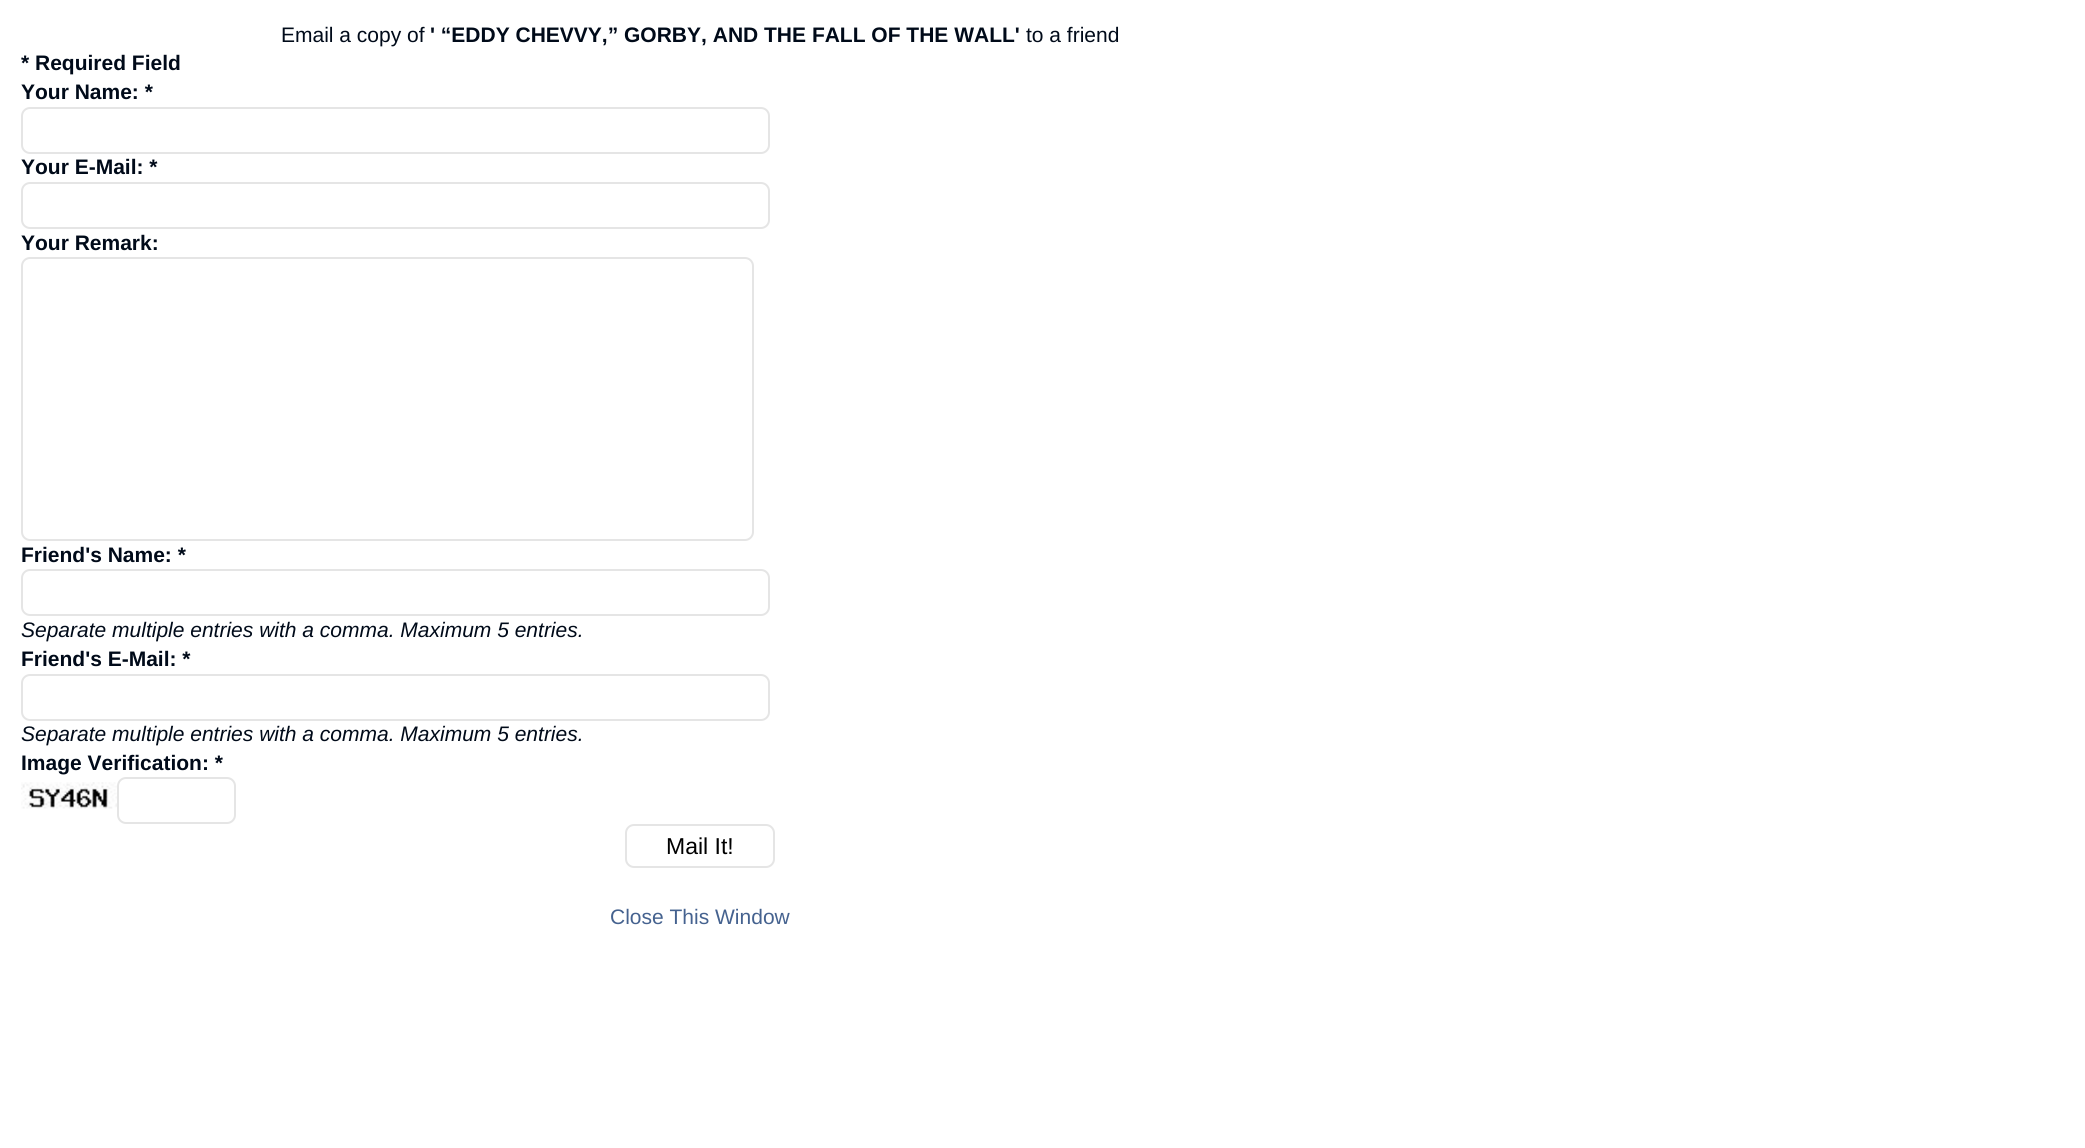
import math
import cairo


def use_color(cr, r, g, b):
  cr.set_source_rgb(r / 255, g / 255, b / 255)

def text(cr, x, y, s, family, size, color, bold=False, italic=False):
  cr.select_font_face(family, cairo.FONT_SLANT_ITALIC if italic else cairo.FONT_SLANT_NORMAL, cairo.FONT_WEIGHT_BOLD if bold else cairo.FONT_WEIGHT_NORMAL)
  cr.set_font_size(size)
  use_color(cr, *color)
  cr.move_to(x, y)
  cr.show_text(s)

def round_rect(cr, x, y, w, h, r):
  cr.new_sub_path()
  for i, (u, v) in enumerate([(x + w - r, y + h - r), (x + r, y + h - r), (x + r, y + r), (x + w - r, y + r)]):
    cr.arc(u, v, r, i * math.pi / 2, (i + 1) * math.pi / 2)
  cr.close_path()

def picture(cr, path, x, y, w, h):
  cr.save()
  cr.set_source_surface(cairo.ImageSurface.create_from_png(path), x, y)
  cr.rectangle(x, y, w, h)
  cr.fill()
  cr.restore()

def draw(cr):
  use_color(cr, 255, 255, 255)
  cr.paint()
  round_rect(cr, 22, 108, 747, 45, 8)
  use_color(cr, 229, 229, 229)
  cr.stroke()
  round_rect(cr, 22, 183, 747, 45, 8)
  cr.stroke()
  round_rect(cr, 22, 258, 731, 282, 8)
  cr.stroke()
  round_rect(cr, 22, 570, 747, 45, 8)
  cr.stroke()
  round_rect(cr, 22, 675, 747, 45, 8)
  cr.stroke()
  picture(cr, "img_01.png", 21, 782, 96, 27)
  round_rect(cr, 118, 778, 117, 45, 8)
  cr.stroke()
  round_rect(cr, 626, 825, 148, 42, 8)
  cr.stroke()
  text(cr, 281, 42, "Email a copy of", "Liberation Sans", 21, (0, 10, 25))
  text(cr, 430, 42, "' “EDDY CHEVVY,” GORBY, AND THE FALL OF THE WALL'", "Liberation Sans", 21, (0, 10, 25), bold=True)
  text(cr, 1026, 42, "to a friend", "Liberation Sans", 21, (0, 10, 25))
  text(cr, 21, 70, "* Required Field", "Liberation Sans", 21, (0, 10, 25), bold=True)
  text(cr, 21, 99, "Your Name: *", "Liberation Sans", 21, (0, 10, 25), bold=True)
  text(cr, 21, 174, "Your E-Mail: *", "Liberation Sans", 21, (0, 10, 25), bold=True)
  text(cr, 21, 250, "Your Remark:", "Liberation Sans", 21, (0, 10, 25), bold=True)
  text(cr, 21, 562, "Friend's Name: *", "Liberation Sans", 21, (0, 10, 25), bold=True)
  text(cr, 21, 637, "Separate multiple entries with a comma. Maximum 5 entries.", "Liberation Sans", 21, (0, 10, 25), italic=True)
  text(cr, 21, 666, "Friend's E-Mail: *", "Liberation Sans", 21, (0, 10, 25), bold=True)
  text(cr, 21, 741, "Separate multiple entries with a comma. Maximum 5 entries.", "Liberation Sans", 21, (0, 10, 25), italic=True)
  text(cr, 21, 770, "Image Verification: *", "Liberation Sans", 21, (0, 10, 25), bold=True)
  text(cr, 666, 854, "Mail It!", "Liberation Sans", 23, (0, 0, 0))
  text(cr, 610, 924, "Close This Window", "Liberation Sans", 21, (69, 98, 143))


surface = cairo.ImageSurface(cairo.FORMAT_RGB24, 2085, 1148)
cr = cairo.Context(surface)
options = cairo.FontOptions()
options.set_hint_metrics(cairo.HINT_METRICS_OFF)
options.set_hint_style(cairo.HINT_STYLE_NONE)
cr.set_font_options(options)
cr.set_miter_limit(4)
draw(cr)
surface.write_to_png("out.png")
